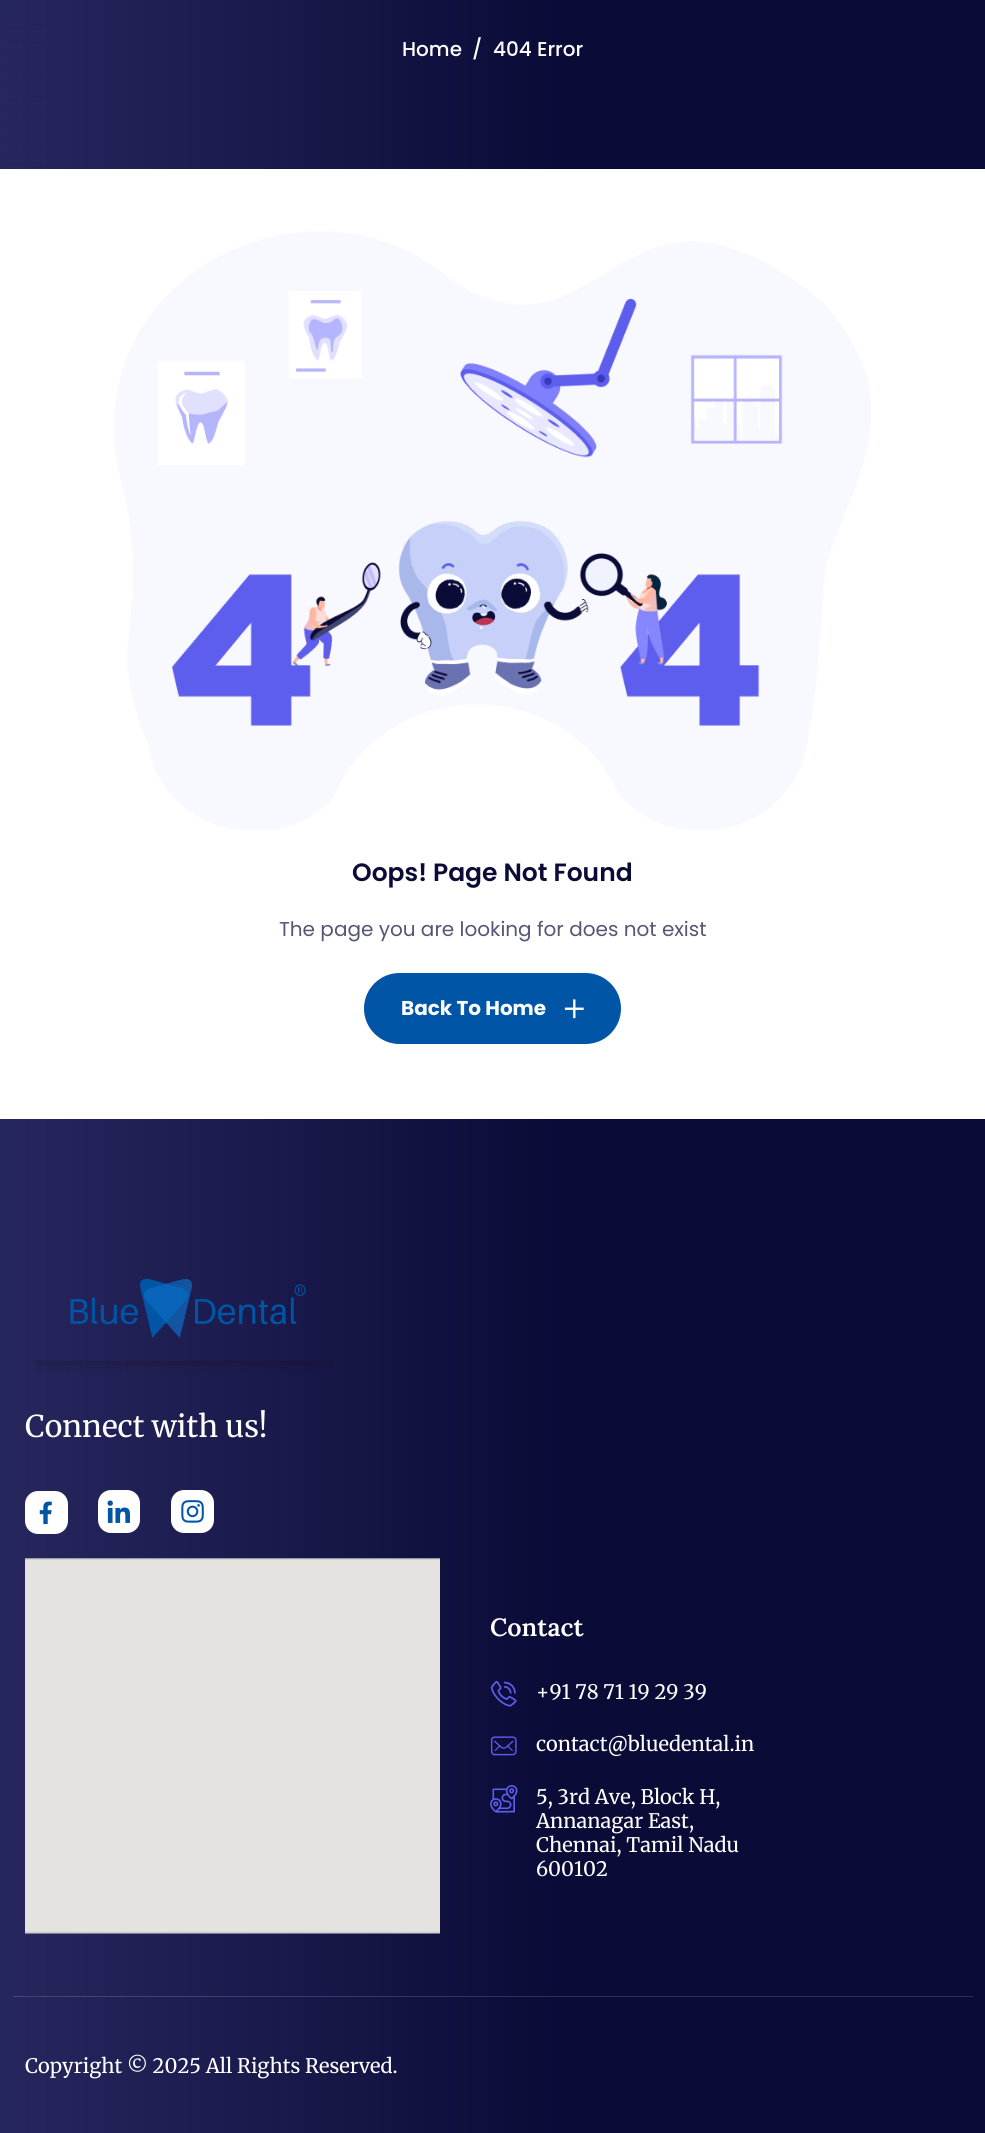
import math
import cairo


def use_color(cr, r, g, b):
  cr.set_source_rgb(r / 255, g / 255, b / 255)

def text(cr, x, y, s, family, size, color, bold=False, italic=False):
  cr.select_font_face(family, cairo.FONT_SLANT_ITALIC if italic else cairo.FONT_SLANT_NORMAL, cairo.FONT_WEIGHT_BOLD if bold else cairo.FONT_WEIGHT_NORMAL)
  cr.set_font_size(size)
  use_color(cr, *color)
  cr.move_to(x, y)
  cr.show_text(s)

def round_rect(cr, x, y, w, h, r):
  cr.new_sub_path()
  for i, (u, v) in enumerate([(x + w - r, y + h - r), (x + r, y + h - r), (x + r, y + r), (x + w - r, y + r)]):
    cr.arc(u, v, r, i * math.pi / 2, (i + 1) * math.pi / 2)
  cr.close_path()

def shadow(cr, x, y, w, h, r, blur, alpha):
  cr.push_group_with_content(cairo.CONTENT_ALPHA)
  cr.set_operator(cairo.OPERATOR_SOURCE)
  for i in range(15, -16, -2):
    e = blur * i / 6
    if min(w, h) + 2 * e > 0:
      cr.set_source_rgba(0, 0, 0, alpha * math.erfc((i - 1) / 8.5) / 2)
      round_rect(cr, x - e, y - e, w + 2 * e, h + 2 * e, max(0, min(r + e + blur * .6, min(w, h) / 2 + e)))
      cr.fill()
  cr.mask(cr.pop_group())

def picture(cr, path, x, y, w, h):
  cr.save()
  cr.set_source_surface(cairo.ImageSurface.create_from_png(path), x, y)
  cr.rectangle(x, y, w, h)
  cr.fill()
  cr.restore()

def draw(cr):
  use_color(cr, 255, 255, 255)
  cr.paint()
  gradient = cairo.LinearGradient(-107, 14, 985, 14)
  gradient.add_color_stop_rgba(0, 0.173, 0.173, 0.4, 1)
  gradient.add_color_stop_rgba(0.61, 0.043, 0.043, 0.22, 1)
  cr.set_source(gradient)
  cr.rectangle(0, 0, 985, 169)
  cr.fill()
  picture(cr, "img_01.png", 6, 31, 44, 130)
  picture(cr, "img_02.png", 114, 231, 757, 599)
  use_color(cr, 0, 85, 166)
  round_rect(cr, 364, 973, 257, 71, 35.5)
  cr.fill()
  picture(cr, "img_03.png", 564, 999, 20, 20)
  gradient = cairo.LinearGradient(-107, 1626, 985, 1626)
  gradient.add_color_stop_rgba(0, 0.173, 0.173, 0.4, 1)
  gradient.add_color_stop_rgba(0.61, 0.043, 0.043, 0.22, 1)
  cr.set_source(gradient)
  cr.rectangle(0, 1119, 985, 1014)
  cr.fill()
  gradient = cairo.LinearGradient(-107, 1626, 985, 1626)
  gradient.add_color_stop_rgba(0, 0.298, 0.298, 0.49, 1)
  gradient.add_color_stop_rgba(0.61, 0.188, 0.188, 0.337, 1)
  cr.set_source(gradient)
  cr.rectangle(13, 1996, 960, 1)
  cr.fill()
  cr.save()
  cr.rectangle(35, 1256, 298, 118)
  cr.clip()
  cr.set_fill_rule(cairo.FILL_RULE_EVEN_ODD)
  cr.new_path()
  cr.move_to(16, 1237)
  cr.line_to(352, 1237)
  cr.line_to(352, 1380)
  cr.line_to(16, 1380)
  cr.close_path()
  cr.move_to(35, 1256)
  cr.line_to(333, 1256)
  cr.line_to(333, 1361)
  cr.line_to(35, 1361)
  cr.close_path()
  cr.clip()
  use_color(cr, 26, 9, 9)
  shadow(cr, 35, 1256, 298, 105, 0, 6, 0.5)
  cr.restore()
  picture(cr, "img_04.png", 70, 1278, 236, 60)
  use_color(cr, 255, 255, 255)
  round_rect(cr, 25, 1491, 43, 43, 13)
  cr.fill()
  picture(cr, "img_05.png", 39, 1501, 13, 24)
  round_rect(cr, 98, 1490, 42, 43, 13)
  cr.fill()
  picture(cr, "img_06.png", 107, 1500, 23, 23)
  round_rect(cr, 171, 1490, 43, 43, 13)
  cr.fill()
  picture(cr, "img_07.png", 181, 1500, 23, 23)
  picture(cr, "img_08.png", 25, 1558, 415, 376)
  picture(cr, "img_09.png", 490, 1680, 27, 27)
  picture(cr, "img_10.png", 490, 1736, 27, 20)
  picture(cr, "img_11.png", 490, 1785, 28, 28)
  text(cr, 402, 56, "Home", "Poppins Medium", 20, (255, 255, 255))
  text(cr, 472, 56, "/", "Poppins Medium", 20, (255, 255, 255))
  text(cr, 493, 56, "404 Error", "Poppins Medium", 20, (255, 255, 255))
  text(cr, 352, 881, "Oops! Page Not Found", "Poppins SemiBold", 25, (11, 11, 56))
  text(cr, 279, 936, "The page you are looking for does not exist", "Poppins", 20, (85, 85, 116))
  text(cr, 401, 1015, "Back To Home", "Poppins", 20, (255, 255, 255), bold=True)
  text(cr, 25, 1437, "Connect with us!", "Merriweather", 30, (255, 255, 255))
  text(cr, 490, 1636, "Contact", "Lora SemiBold", 25, (255, 255, 255))
  text(cr, 536, 1699, "+91 78 71 19 29 39", "Merriweather", 20, (255, 255, 255))
  text(cr, 536, 1751, "contact@bluedental.in", "Merriweather", 20, (255, 255, 255))
  text(cr, 536, 1804, "5, 3rd Ave, Block H,", "Merriweather", 20, (255, 255, 255))
  text(cr, 536, 1828, "Annanagar East,", "Merriweather", 20, (255, 255, 255))
  text(cr, 536, 1852, "Chennai, Tamil Nadu", "Merriweather", 20, (255, 255, 255))
  text(cr, 536, 1876, "600102", "Merriweather", 20, (255, 255, 255))
  text(cr, 25, 2073, "Copyright © 2025 All Rights Reserved.", "Merriweather", 20, (255, 255, 255))


surface = cairo.ImageSurface(cairo.FORMAT_RGB24, 985, 2133)
cr = cairo.Context(surface)
options = cairo.FontOptions()
options.set_hint_metrics(cairo.HINT_METRICS_OFF)
options.set_hint_style(cairo.HINT_STYLE_NONE)
cr.set_font_options(options)
cr.set_miter_limit(4)
draw(cr)
surface.write_to_png("out.png")
